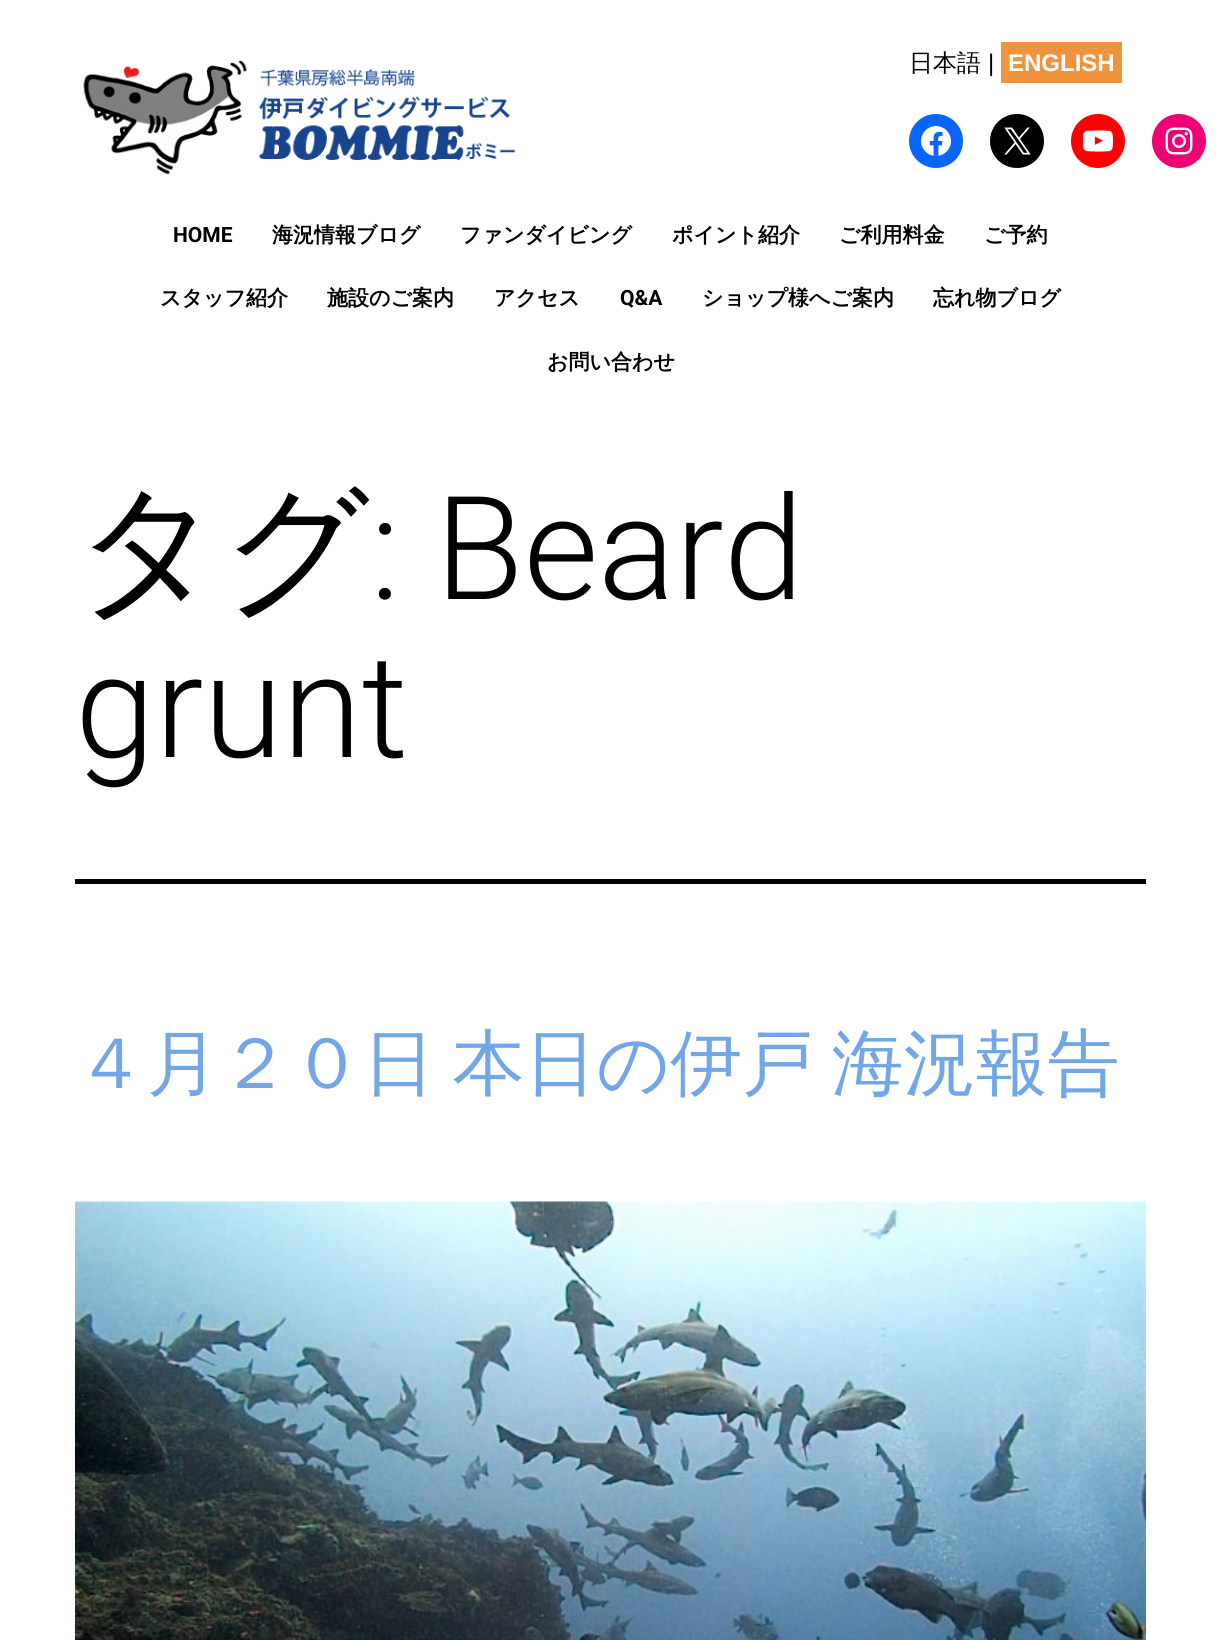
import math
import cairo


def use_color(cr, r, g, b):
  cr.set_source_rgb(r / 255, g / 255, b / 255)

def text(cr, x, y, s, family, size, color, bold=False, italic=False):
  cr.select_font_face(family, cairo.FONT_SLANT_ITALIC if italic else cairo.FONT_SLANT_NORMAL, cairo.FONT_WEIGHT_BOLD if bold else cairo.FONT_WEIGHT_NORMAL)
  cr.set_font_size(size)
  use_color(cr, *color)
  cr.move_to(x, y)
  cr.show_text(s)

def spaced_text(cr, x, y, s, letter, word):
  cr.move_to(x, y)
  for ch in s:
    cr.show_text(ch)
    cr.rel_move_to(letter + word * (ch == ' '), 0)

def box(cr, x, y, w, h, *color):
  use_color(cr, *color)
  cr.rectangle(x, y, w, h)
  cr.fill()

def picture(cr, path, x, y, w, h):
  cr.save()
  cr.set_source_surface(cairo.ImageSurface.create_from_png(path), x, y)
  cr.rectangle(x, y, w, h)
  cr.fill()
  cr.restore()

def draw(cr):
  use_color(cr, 255, 255, 255)
  cr.paint()
  picture(cr, "img_01.png", 83, 60, 433, 115)
  box(cr, 1001, 42, 121, 41, 239, 147, 60)
  use_color(cr, 8, 102, 255)
  cr.arc(936, 141, 27, 0, 2 * math.pi)
  cr.fill()
  picture(cr, "img_02.png", 921, 126, 30, 30)
  use_color(cr, 0, 0, 0)
  cr.arc(1017, 141, 27, 0, 2 * math.pi)
  cr.fill()
  picture(cr, "img_03.png", 1004, 127, 27, 28)
  use_color(cr, 255, 0, 0)
  cr.arc(1098, 141, 27, 0, 2 * math.pi)
  cr.fill()
  picture(cr, "img_04.png", 1083, 130, 30, 22)
  use_color(cr, 240, 0, 117)
  cr.arc(1179, 141, 27, 0, 2 * math.pi)
  cr.fill()
  picture(cr, "img_05.png", 1165, 127, 28, 28)
  box(cr, 75, 879, 1071, 5, 0, 0, 0)
  picture(cr, "img_06.png", 75, 1201, 1071, 439)
  text(cr, 909, 71, "日本語", "WenQuanYi Zen Hei Medium", 24, (0, 0, 0))
  text(cr, 988, 71, "|", "Liberation Sans", 24, (0, 0, 0))
  text(cr, 1008, 71, "ENGLISH", "Liberation Sans", 24, (255, 255, 255), bold=True)
  text(cr, 173, 242, "HOME", "Roboto", 21, (0, 0, 0), bold=True)
  text(cr, 272, 242, "海況情報ブログ", "WenQuanYi Zen Hei", 21, (0, 0, 0), bold=True)
  text(cr, 460, 242, "ファンダイビング", "WenQuanYi Zen Hei", 21, (0, 0, 0), bold=True)
  text(cr, 672, 242, "ポイント紹介", "WenQuanYi Zen Hei", 21, (0, 0, 0), bold=True)
  text(cr, 839, 242, "ご利用料金", "WenQuanYi Zen Hei", 21, (0, 0, 0), bold=True)
  text(cr, 984, 242, "ご予約", "WenQuanYi Zen Hei", 21, (0, 0, 0), bold=True)
  text(cr, 160, 305, "スタッフ紹介", "WenQuanYi Zen Hei", 21, (0, 0, 0), bold=True)
  text(cr, 327, 305, "施設のご案内", "WenQuanYi Zen Hei", 21, (0, 0, 0), bold=True)
  text(cr, 494, 305, "アクセス", "WenQuanYi Zen Hei", 21, (0, 0, 0), bold=True)
  text(cr, 620, 305, "Q&A", "Roboto", 21, (0, 0, 0), bold=True)
  text(cr, 702, 305, "ショップ様へご案内", "WenQuanYi Zen Hei", 21, (0, 0, 0), bold=True)
  text(cr, 933, 305, "忘れ物ブログ", "WenQuanYi Zen Hei", 21, (0, 0, 0), bold=True)
  text(cr, 547, 369, "お問い合わせ", "WenQuanYi Zen Hei", 21, (0, 0, 0), bold=True)
  text(cr, 75, 599, "タグ", "WenQuanYi Zen Hei Medium", 144, (0, 0, 0))
  text(cr, 370, 599, ": Beard", "Roboto Light", 144, (0, 0, 0))
  text(cr, 75, 757, "grunt", "Roboto Light", 144, (0, 0, 0))
  cr.select_font_face("WenQuanYi Zen Hei Medium")
  cr.set_font_size(72)
  use_color(cr, 115, 166, 230)
  spaced_text(cr, 75, 1088, "４月２０日 本日の伊戸 海況報告", 0, -4)


surface = cairo.ImageSurface(cairo.FORMAT_RGB24, 1220, 1640)
cr = cairo.Context(surface)
options = cairo.FontOptions()
options.set_hint_metrics(cairo.HINT_METRICS_OFF)
options.set_hint_style(cairo.HINT_STYLE_NONE)
cr.set_font_options(options)
cr.set_miter_limit(4)
draw(cr)
surface.write_to_png("out.png")
